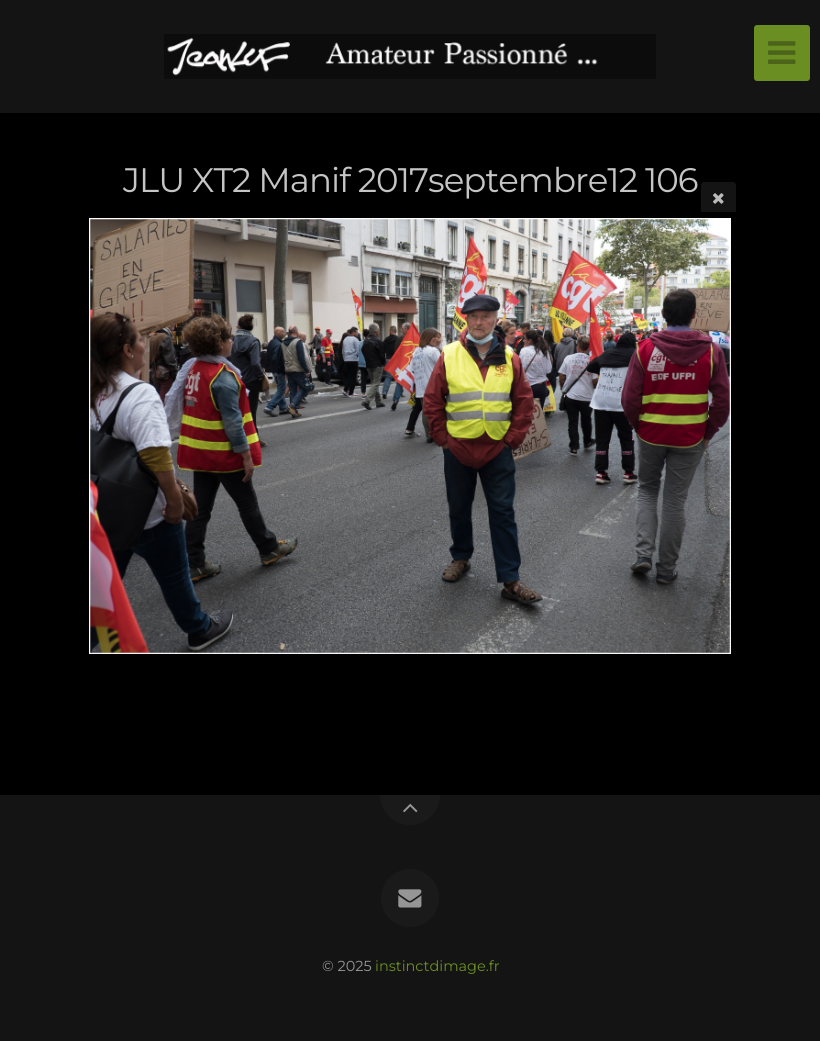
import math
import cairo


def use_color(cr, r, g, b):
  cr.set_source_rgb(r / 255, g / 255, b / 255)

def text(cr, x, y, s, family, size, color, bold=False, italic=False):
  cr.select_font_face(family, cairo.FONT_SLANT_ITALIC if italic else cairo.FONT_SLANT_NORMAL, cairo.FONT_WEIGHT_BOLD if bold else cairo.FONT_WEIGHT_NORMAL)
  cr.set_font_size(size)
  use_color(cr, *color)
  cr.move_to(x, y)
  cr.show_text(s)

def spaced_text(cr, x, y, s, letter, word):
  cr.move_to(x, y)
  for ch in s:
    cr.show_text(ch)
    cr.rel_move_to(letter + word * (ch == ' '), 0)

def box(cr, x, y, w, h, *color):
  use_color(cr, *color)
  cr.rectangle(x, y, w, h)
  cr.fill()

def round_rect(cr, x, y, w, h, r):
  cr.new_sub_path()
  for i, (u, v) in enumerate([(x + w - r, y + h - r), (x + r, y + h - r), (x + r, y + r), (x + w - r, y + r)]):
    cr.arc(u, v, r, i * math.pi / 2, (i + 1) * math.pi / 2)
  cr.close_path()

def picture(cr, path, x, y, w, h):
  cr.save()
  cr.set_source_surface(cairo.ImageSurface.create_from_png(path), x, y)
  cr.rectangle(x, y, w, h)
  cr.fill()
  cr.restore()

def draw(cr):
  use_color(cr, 0, 0, 0)
  cr.paint()
  box(cr, 0, 0, 820, 113, 20, 20, 20)
  use_color(cr, 107, 142, 35)
  round_rect(cr, 754, 25, 56, 56, 3)
  cr.fill()
  picture(cr, "img_01.png", 768, 41, 28, 23)
  picture(cr, "img_02.png", 164, 34, 492, 45)
  use_color(cr, 20, 20, 20)
  cr.new_path()
  cr.move_to(704, 182)
  cr.line_to(733, 182)
  cr.curve_to(734.5, 182, 736, 183.5, 736, 185)
  cr.line_to(736, 213)
  cr.line_to(701, 213)
  cr.line_to(701, 185)
  cr.curve_to(701, 183.5, 702.5, 182, 704, 182)
  cr.close_path()
  cr.fill()
  picture(cr, "img_03.png", 713, 193, 11, 11)
  box(cr, 701, 212, 35, 1, 0, 0, 0)
  picture(cr, "img_04.png", 89, 218, 642, 436)
  box(cr, 0, 795, 820, 246, 20, 20, 20)
  use_color(cr, 26, 26, 26)
  cr.new_path()
  cr.move_to(380, 795)
  cr.line_to(440, 795)
  cr.curve_to(440, 811.5, 426.5, 825, 410, 825)
  cr.curve_to(393.5, 825, 380, 811.5, 380, 795)
  cr.close_path()
  cr.fill()
  picture(cr, "img_05.png", 403, 803, 15, 10)
  cr.arc(410, 898, 29, 0, 2 * math.pi)
  cr.fill()
  picture(cr, "img_06.png", 398, 889, 24, 19)
  cr.select_font_face("Montserrat Thin")
  cr.set_font_size(34)
  use_color(cr, 197, 197, 197)
  spaced_text(cr, 123, 192, "JLU XT2 Manif 2017septembre12 106", -0.95, 0)
  text(cr, 322, 971, "© 2025", "Montserrat Thin", 14.5, (150, 150, 150))
  text(cr, 375, 971, "instinctdimage.fr", "Montserrat Thin", 14.5, (107, 142, 35))


surface = cairo.ImageSurface(cairo.FORMAT_RGB24, 820, 1041)
cr = cairo.Context(surface)
options = cairo.FontOptions()
options.set_hint_metrics(cairo.HINT_METRICS_OFF)
options.set_hint_style(cairo.HINT_STYLE_NONE)
cr.set_font_options(options)
cr.set_miter_limit(4)
draw(cr)
surface.write_to_png("out.png")
